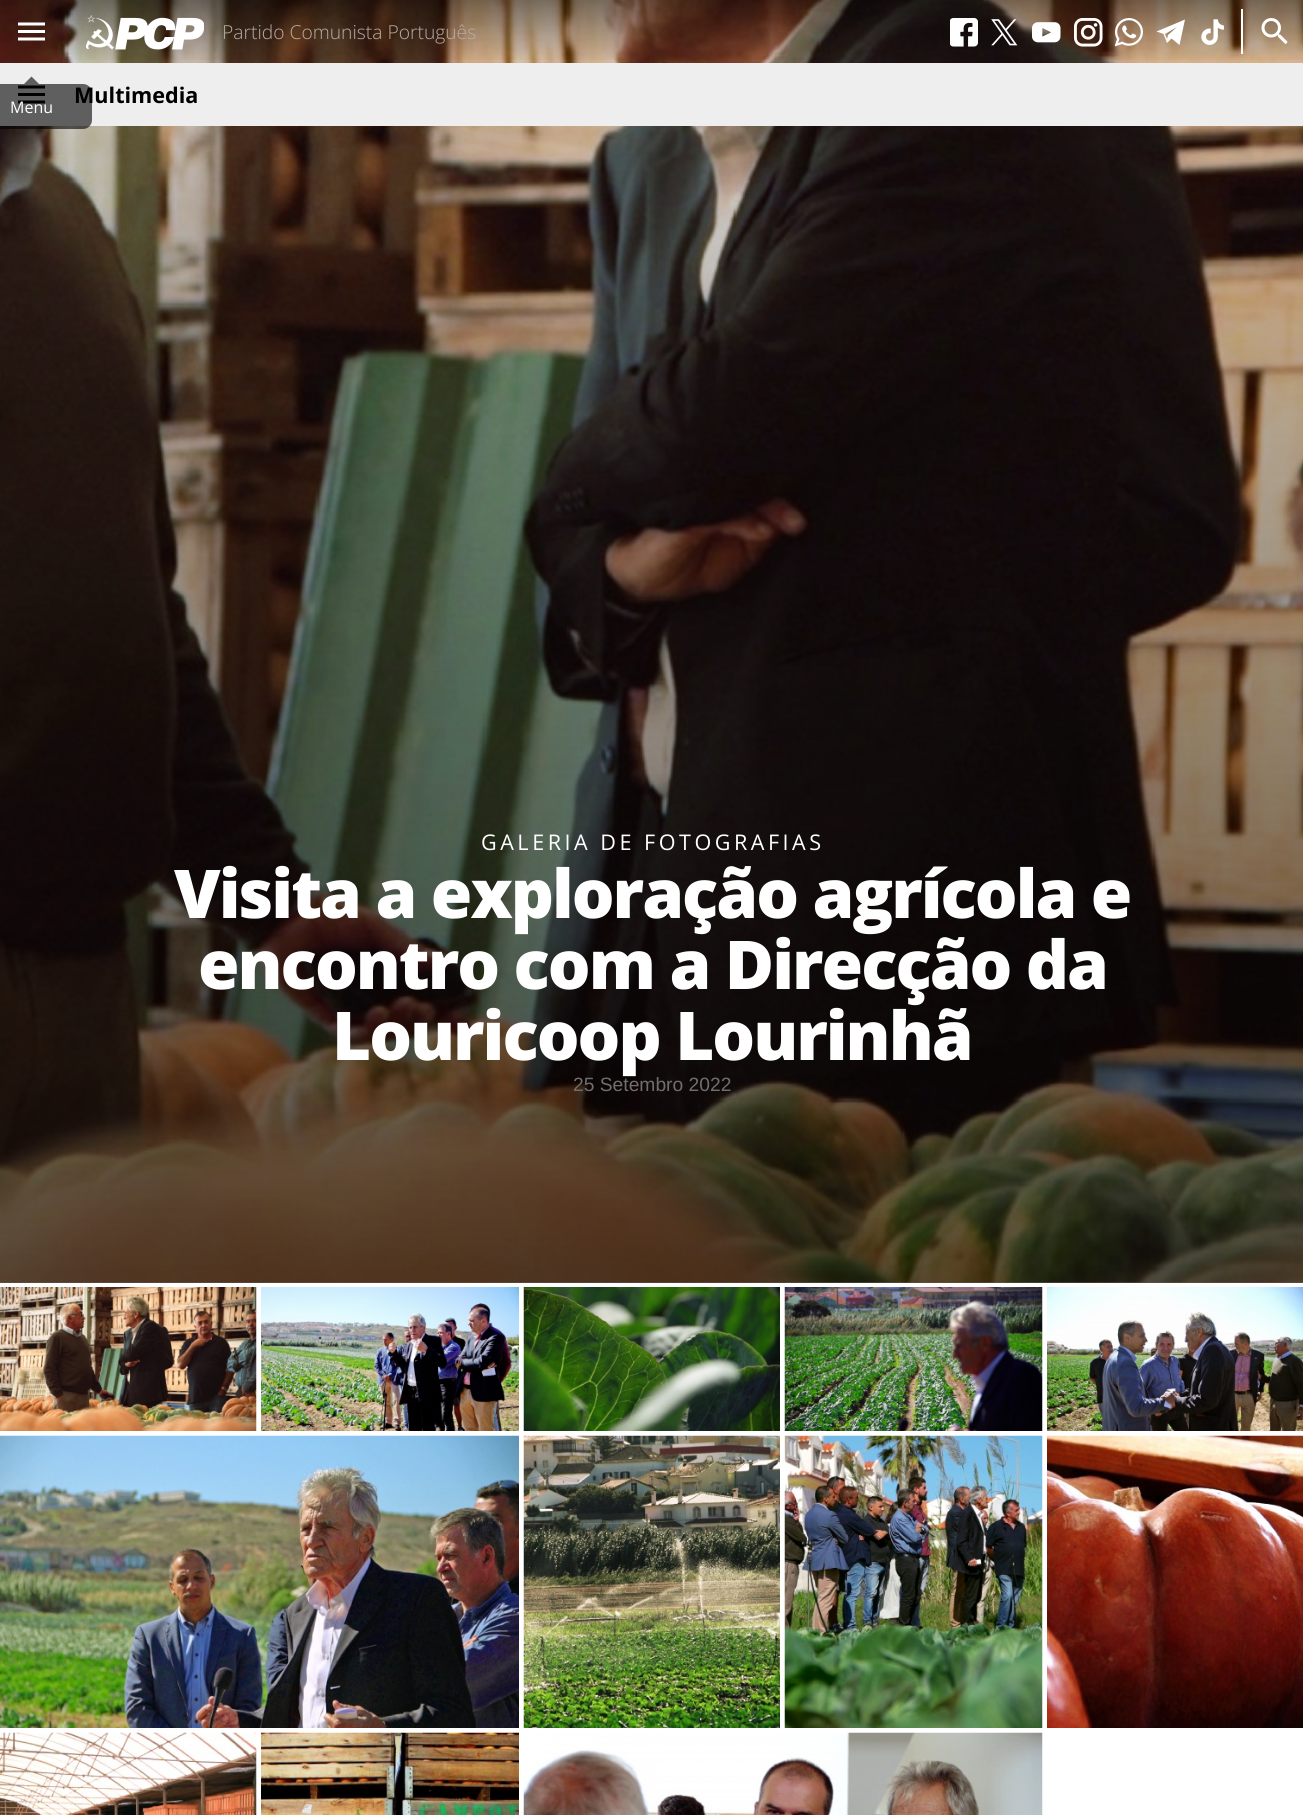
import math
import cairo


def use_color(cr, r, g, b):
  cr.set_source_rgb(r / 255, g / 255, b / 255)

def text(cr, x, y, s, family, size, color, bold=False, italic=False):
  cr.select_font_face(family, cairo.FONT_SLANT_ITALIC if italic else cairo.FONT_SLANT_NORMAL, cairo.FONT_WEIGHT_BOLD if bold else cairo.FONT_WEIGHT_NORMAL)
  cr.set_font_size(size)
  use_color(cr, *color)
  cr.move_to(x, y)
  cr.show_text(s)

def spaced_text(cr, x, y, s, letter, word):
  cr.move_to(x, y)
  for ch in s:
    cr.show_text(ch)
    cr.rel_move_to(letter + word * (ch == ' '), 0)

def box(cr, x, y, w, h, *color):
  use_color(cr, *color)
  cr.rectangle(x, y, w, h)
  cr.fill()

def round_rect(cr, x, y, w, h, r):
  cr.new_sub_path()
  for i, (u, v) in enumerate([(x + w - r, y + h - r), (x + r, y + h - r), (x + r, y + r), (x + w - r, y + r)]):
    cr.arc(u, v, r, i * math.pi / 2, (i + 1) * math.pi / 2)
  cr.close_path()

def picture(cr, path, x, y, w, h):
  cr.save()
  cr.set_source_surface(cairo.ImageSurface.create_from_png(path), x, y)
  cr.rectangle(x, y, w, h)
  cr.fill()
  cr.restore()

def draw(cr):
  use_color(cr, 255, 255, 255)
  cr.paint()
  picture(cr, "img_11.png", 0, 0, 1303, 1283)
  gradient = cairo.LinearGradient(652, -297, 652, 1283)
  gradient.add_color_stop_rgba(0, 0, 0, 0, 0)
  gradient.add_color_stop_rgba(0.99, 0, 0, 0, 0.65)
  gradient.add_color_stop_rgba(1, 0, 0, 0, 0.65)
  cr.set_source(gradient)
  cr.rectangle(0, 0, 1303, 1283)
  cr.fill()
  gradient = cairo.LinearGradient(652, 0, 652, 63)
  gradient.add_color_stop_rgba(0, 0, 0, 0, 0.46)
  gradient.add_color_stop_rgba(1, 0, 0, 0, 0)
  cr.set_source(gradient)
  cr.rectangle(0, 0, 1303, 60)
  cr.fill()
  picture(cr, "img_01.png", 86, 15, 118, 35)
  picture(cr, "img_02.png", 950, 18, 28, 29)
  picture(cr, "img_03.png", 991, 19, 27, 27)
  picture(cr, "img_04.png", 1032, 22, 29, 21)
  picture(cr, "img_05.png", 1074, 18, 29, 29)
  picture(cr, "img_06.png", 1115, 18, 28, 29)
  use_color(cr, 255, 255, 255)
  cr.new_path()
  cr.move_to(1163.5, 34)
  cr.line_to(1167, 43)
  cr.line_to(1171.5, 38.5)
  cr.line_to(1179.5, 45)
  cr.line_to(1185, 19.5)
  cr.line_to(1156.5, 31.5)
  cr.close_path()
  cr.move_to(1177, 27)
  cr.line_to(1168, 35)
  cr.line_to(1167, 39)
  cr.line_to(1165, 34)
  cr.close_path()
  cr.fill()
  picture(cr, "img_07.png", 1201, 19, 23, 26)
  box(cr, 1241, 9, 2, 45, 255, 255, 255)
  picture(cr, "img_08.png", 1261, 18, 27, 27)
  cr.set_source_rgba(0, 0, 0, 0.08)
  cr.rectangle(0, 0, 63, 63)
  cr.fill()
  picture(cr, "img_09.png", 18, 22, 27, 19)
  box(cr, 0, 63, 1303, 63, 238, 238, 238)
  use_color(cr, 95, 95, 95)
  cr.new_path()
  cr.move_to(39, 84)
  cr.line_to(24, 84)
  cr.line_to(31.5, 76.5)
  cr.close_path()
  cr.fill()
  picture(cr, "img_10.png", 18, 85, 27, 19)
  picture(cr, "img_12.png", 0, 1287, 257, 144)
  picture(cr, "img_13.png", 261, 1287, 258, 144)
  picture(cr, "img_14.png", 523, 1287, 257, 144)
  picture(cr, "img_15.png", 784, 1287, 259, 144)
  picture(cr, "img_16.png", 1047, 1287, 256, 144)
  picture(cr, "img_17.png", 0, 1435, 519, 293)
  picture(cr, "img_18.png", 523, 1435, 257, 293)
  picture(cr, "img_19.png", 784, 1435, 259, 293)
  picture(cr, "img_20.png", 1047, 1435, 256, 293)
  picture(cr, "img_21.png", 0, 1732, 257, 83)
  picture(cr, "img_22.png", 261, 1732, 258, 83)
  picture(cr, "img_23.png", 523, 1732, 520, 83)
  text(cr, 222, 39, "Partido Comunista Português", "Open Sans Light", 19.25, (182, 172, 166))
  text(cr, 74, 103, "Multimedia", "Open Sans", 21.6, (0, 0, 0), bold=True)
  cr.set_source_rgba(0, 0, 0, 0.6)
  round_rect(cr, -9, 84, 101, 45, 9)
  cr.fill()
  text(cr, 10, 113, "Menu", "Open Sans", 16, (255, 255, 255))
  cr.set_font_size(21.6)
  spaced_text(cr, 481, 850, "GALERIA DE FOTOGRAFIAS", 3.5, 0)
  cr.select_font_face("Open Sans ExtraBold")
  cr.set_font_size(67.25)
  spaced_text(cr, 174, 918, "Visita a exploração agrícola e", -2, 0)
  spaced_text(cr, 198, 989, "encontro com a Direcção da", -2, 0)
  spaced_text(cr, 332, 1060, "Louricoop Lourinhã", -2, 0)
  text(cr, 573, 1091, "25 Setembro 2022", "Liberation Sans", 19.25, (112, 110, 110))


surface = cairo.ImageSurface(cairo.FORMAT_RGB24, 1303, 1815)
cr = cairo.Context(surface)
options = cairo.FontOptions()
options.set_hint_metrics(cairo.HINT_METRICS_OFF)
options.set_hint_style(cairo.HINT_STYLE_NONE)
cr.set_font_options(options)
cr.set_miter_limit(4)
draw(cr)
surface.write_to_png("out.png")
